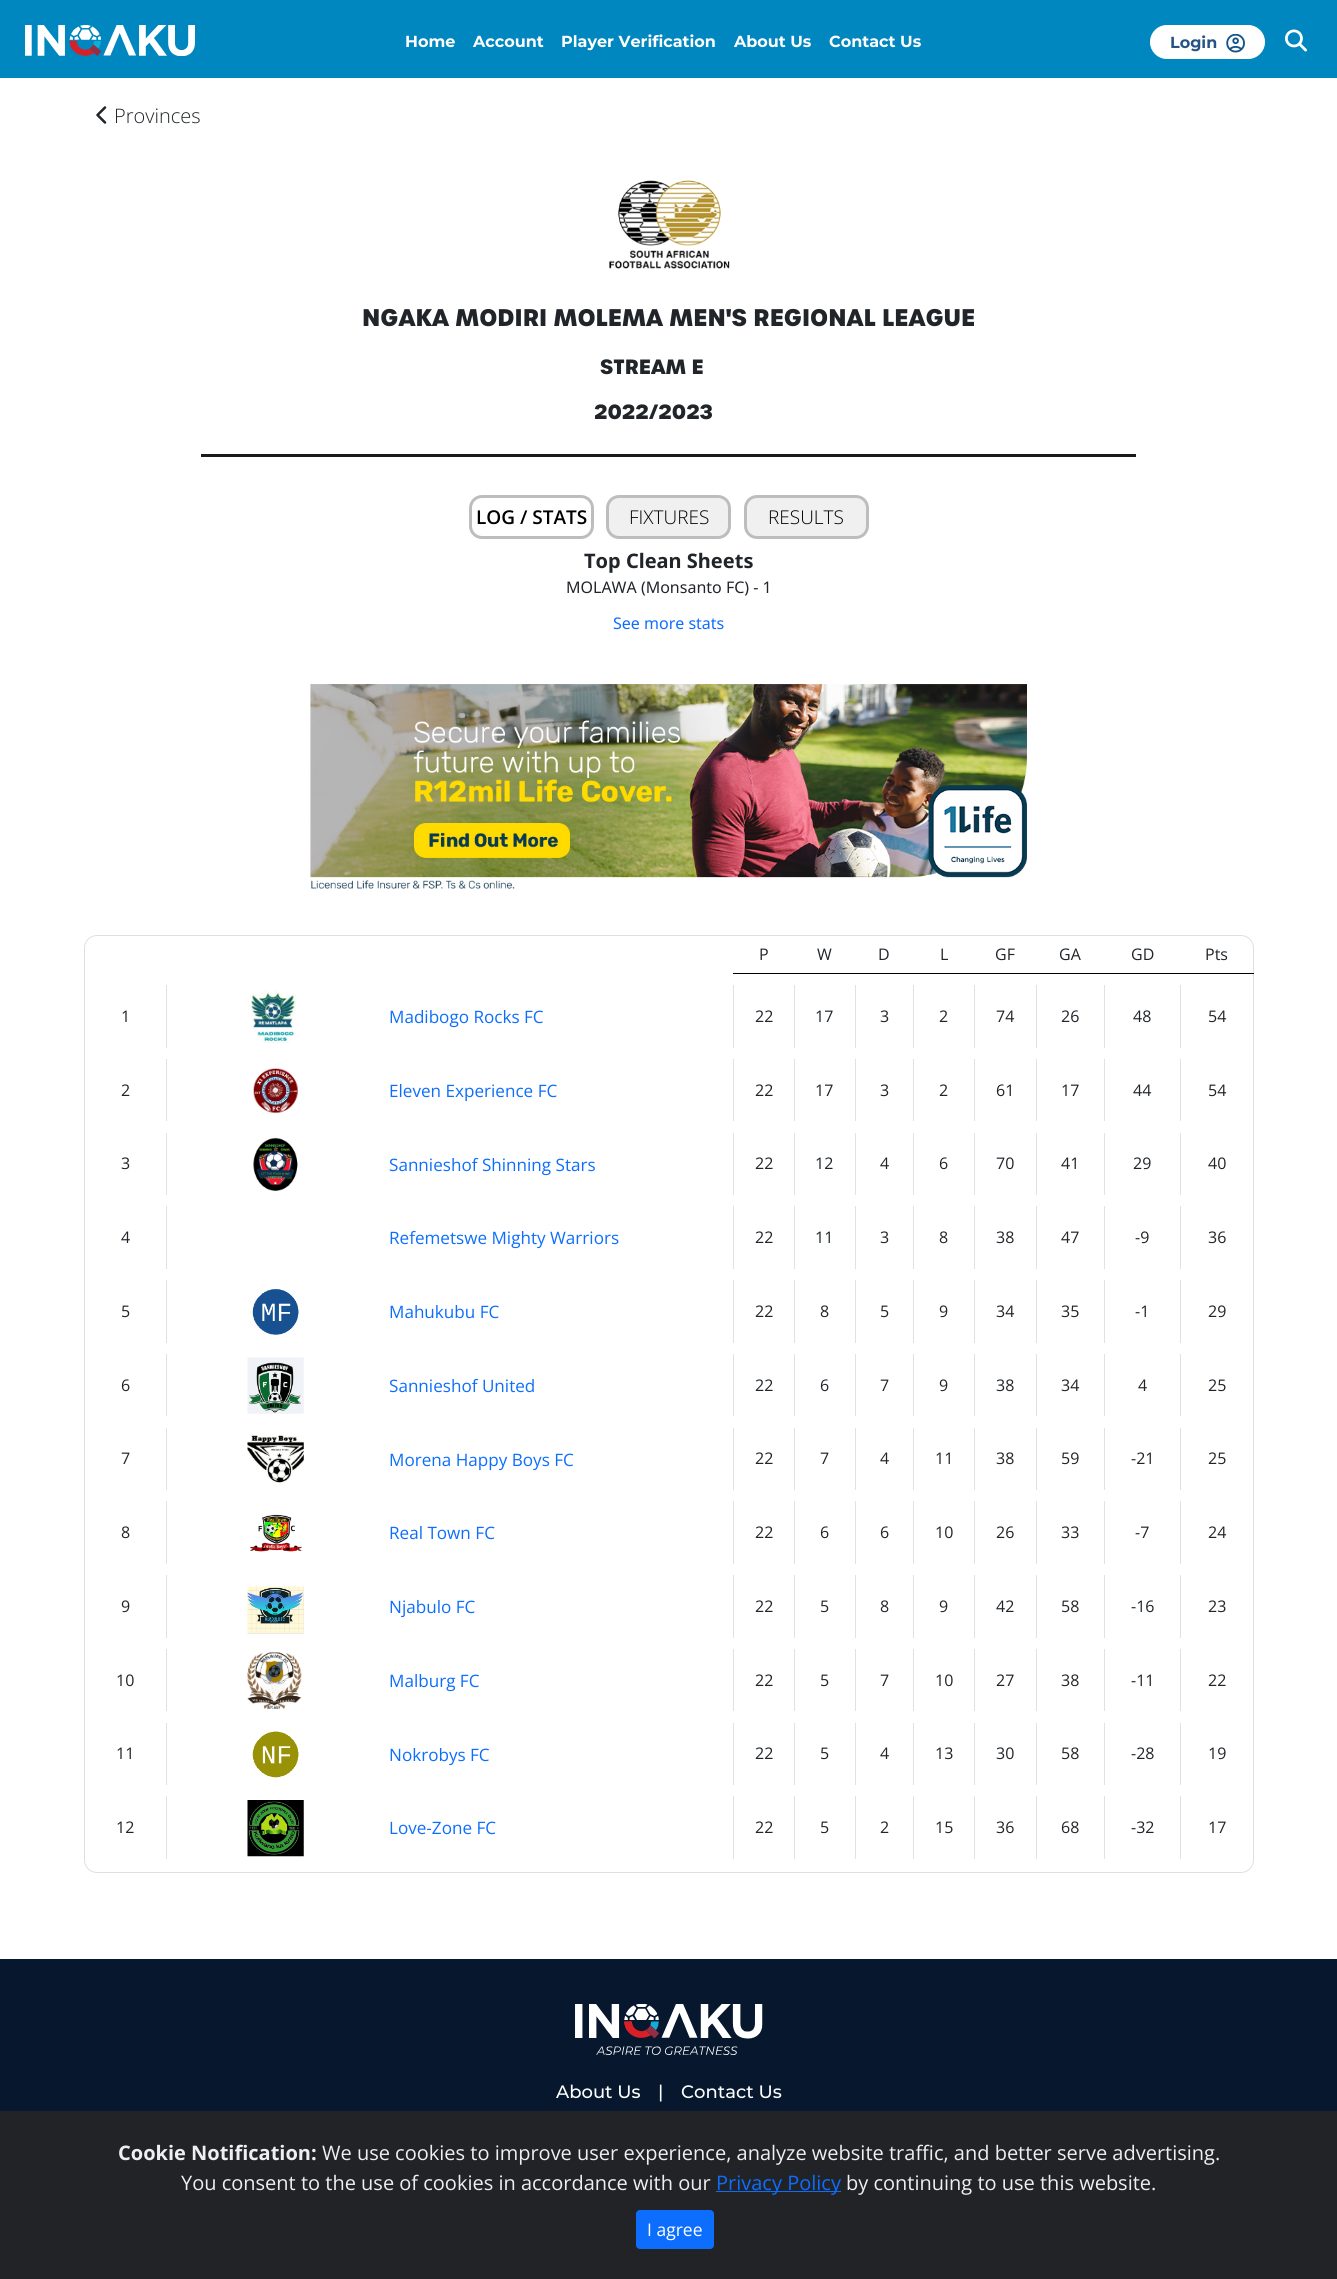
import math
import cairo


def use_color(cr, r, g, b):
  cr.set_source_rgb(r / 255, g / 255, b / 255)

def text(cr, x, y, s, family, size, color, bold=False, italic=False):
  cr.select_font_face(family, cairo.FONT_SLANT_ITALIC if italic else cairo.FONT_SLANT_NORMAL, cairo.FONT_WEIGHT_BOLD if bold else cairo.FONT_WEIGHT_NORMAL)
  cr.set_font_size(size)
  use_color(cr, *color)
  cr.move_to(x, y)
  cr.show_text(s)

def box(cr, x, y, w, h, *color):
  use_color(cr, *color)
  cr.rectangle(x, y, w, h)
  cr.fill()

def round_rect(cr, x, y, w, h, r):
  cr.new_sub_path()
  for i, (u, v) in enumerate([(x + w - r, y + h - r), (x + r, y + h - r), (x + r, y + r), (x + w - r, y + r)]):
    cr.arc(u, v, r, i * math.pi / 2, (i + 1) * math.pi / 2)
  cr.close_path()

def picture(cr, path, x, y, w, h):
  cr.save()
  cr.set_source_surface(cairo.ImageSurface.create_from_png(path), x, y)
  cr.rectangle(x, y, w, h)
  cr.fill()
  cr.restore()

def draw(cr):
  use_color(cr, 255, 255, 255)
  cr.paint()
  box(cr, 0, 0, 1337, 78, 0, 135, 192)
  picture(cr, "img_01.png", 25, 25, 170, 31)
  use_color(cr, 255, 255, 255)
  round_rect(cr, 1150.5, 25.5, 114, 33, 16.5)
  cr.fill_preserve()
  cr.set_line_width(1)
  cr.stroke()
  picture(cr, "img_02.png", 1226, 34, 19, 19)
  picture(cr, "img_03.png", 1285, 29, 22, 23)
  picture(cr, "img_04.png", 96, 106, 11, 18)
  picture(cr, "img_05.png", 609, 180, 121, 89)
  box(cr, 201, 454, 935, 3, 26, 26, 26)
  round_rect(cr, 470.5, 496.5, 122, 41, 11.5)
  use_color(cr, 189, 189, 189)
  cr.set_line_width(3)
  cr.stroke()
  use_color(cr, 240, 240, 240)
  round_rect(cr, 607.5, 496.5, 122, 41, 11.5)
  cr.fill_preserve()
  use_color(cr, 189, 189, 189)
  cr.stroke()
  use_color(cr, 240, 240, 240)
  round_rect(cr, 745.5, 496.5, 122, 41, 11.5)
  cr.fill_preserve()
  use_color(cr, 189, 189, 189)
  cr.stroke()
  picture(cr, "img_06.png", 310, 684, 717, 205)
  round_rect(cr, 84.5, 935.5, 1169, 937, 12.5)
  use_color(cr, 223, 223, 223)
  cr.set_line_width(1)
  cr.stroke()
  box(cr, 733, 973, 521, 1, 0, 0, 0)
  box(cr, 166, 985, 1, 63, 222, 226, 230)
  picture(cr, "img_07.png", 250, 990, 46, 53)
  box(cr, 733, 985, 1, 63, 222, 226, 230)
  box(cr, 794, 985, 1, 63, 222, 226, 230)
  box(cr, 855, 985, 1, 63, 222, 226, 230)
  box(cr, 913, 985, 1, 63, 222, 226, 230)
  box(cr, 974, 985, 1, 63, 222, 226, 230)
  box(cr, 1036, 985, 1, 63, 222, 226, 230)
  box(cr, 1104, 985, 1, 63, 222, 226, 230)
  box(cr, 1180, 985, 1, 63, 222, 226, 230)
  box(cr, 166, 1059, 1, 62, 222, 226, 230)
  picture(cr, "img_08.png", 253, 1068, 46, 46)
  box(cr, 733, 1059, 1, 62, 222, 226, 230)
  box(cr, 794, 1059, 1, 62, 222, 226, 230)
  box(cr, 855, 1059, 1, 62, 222, 226, 230)
  box(cr, 913, 1059, 1, 62, 222, 226, 230)
  box(cr, 974, 1059, 1, 62, 222, 226, 230)
  box(cr, 1036, 1059, 1, 62, 222, 226, 230)
  box(cr, 1104, 1059, 1, 62, 222, 226, 230)
  box(cr, 1180, 1059, 1, 62, 222, 226, 230)
  box(cr, 166, 1133, 1, 62, 222, 226, 230)
  picture(cr, "img_09.png", 253, 1137, 45, 54)
  box(cr, 733, 1133, 1, 62, 222, 226, 230)
  box(cr, 794, 1133, 1, 62, 222, 226, 230)
  box(cr, 855, 1133, 1, 62, 222, 226, 230)
  box(cr, 913, 1133, 1, 62, 222, 226, 230)
  box(cr, 974, 1133, 1, 62, 222, 226, 230)
  box(cr, 1036, 1133, 1, 62, 222, 226, 230)
  box(cr, 1104, 1133, 1, 62, 222, 226, 230)
  box(cr, 1180, 1133, 1, 62, 222, 226, 230)
  box(cr, 166, 1206, 1, 63, 222, 226, 230)
  box(cr, 733, 1206, 1, 63, 222, 226, 230)
  box(cr, 794, 1206, 1, 63, 222, 226, 230)
  box(cr, 855, 1206, 1, 63, 222, 226, 230)
  box(cr, 913, 1206, 1, 63, 222, 226, 230)
  box(cr, 974, 1206, 1, 63, 222, 226, 230)
  box(cr, 1036, 1206, 1, 63, 222, 226, 230)
  box(cr, 1104, 1206, 1, 63, 222, 226, 230)
  box(cr, 1180, 1206, 1, 63, 222, 226, 230)
  box(cr, 166, 1280, 1, 63, 222, 226, 230)
  picture(cr, "img_10.png", 252, 1289, 47, 46)
  box(cr, 733, 1280, 1, 63, 222, 226, 230)
  box(cr, 794, 1280, 1, 63, 222, 226, 230)
  box(cr, 855, 1280, 1, 63, 222, 226, 230)
  box(cr, 913, 1280, 1, 63, 222, 226, 230)
  box(cr, 974, 1280, 1, 63, 222, 226, 230)
  box(cr, 1036, 1280, 1, 63, 222, 226, 230)
  box(cr, 1104, 1280, 1, 63, 222, 226, 230)
  box(cr, 1180, 1280, 1, 63, 222, 226, 230)
  box(cr, 166, 1354, 1, 62, 222, 226, 230)
  picture(cr, "img_11.png", 247, 1357, 57, 57)
  box(cr, 733, 1354, 1, 62, 222, 226, 230)
  box(cr, 794, 1354, 1, 62, 222, 226, 230)
  box(cr, 855, 1354, 1, 62, 222, 226, 230)
  box(cr, 913, 1354, 1, 62, 222, 226, 230)
  box(cr, 974, 1354, 1, 62, 222, 226, 230)
  box(cr, 1036, 1354, 1, 62, 222, 226, 230)
  box(cr, 1104, 1354, 1, 62, 222, 226, 230)
  box(cr, 1180, 1354, 1, 62, 222, 226, 230)
  box(cr, 166, 1428, 1, 62, 222, 226, 230)
  picture(cr, "img_12.png", 247, 1435, 57, 48)
  box(cr, 733, 1428, 1, 62, 222, 226, 230)
  box(cr, 794, 1428, 1, 62, 222, 226, 230)
  box(cr, 855, 1428, 1, 62, 222, 226, 230)
  box(cr, 913, 1428, 1, 62, 222, 226, 230)
  box(cr, 974, 1428, 1, 62, 222, 226, 230)
  box(cr, 1036, 1428, 1, 62, 222, 226, 230)
  box(cr, 1104, 1428, 1, 62, 222, 226, 230)
  box(cr, 1180, 1428, 1, 62, 222, 226, 230)
  box(cr, 166, 1501, 1, 63, 222, 226, 230)
  picture(cr, "img_13.png", 250, 1514, 52, 38)
  box(cr, 733, 1501, 1, 63, 222, 226, 230)
  box(cr, 794, 1501, 1, 63, 222, 226, 230)
  box(cr, 855, 1501, 1, 63, 222, 226, 230)
  box(cr, 913, 1501, 1, 63, 222, 226, 230)
  box(cr, 974, 1501, 1, 63, 222, 226, 230)
  box(cr, 1036, 1501, 1, 63, 222, 226, 230)
  box(cr, 1104, 1501, 1, 63, 222, 226, 230)
  box(cr, 1180, 1501, 1, 63, 222, 226, 230)
  box(cr, 166, 1575, 1, 63, 222, 226, 230)
  picture(cr, "img_14.png", 247, 1586, 57, 48)
  box(cr, 733, 1575, 1, 63, 222, 226, 230)
  box(cr, 794, 1575, 1, 63, 222, 226, 230)
  box(cr, 855, 1575, 1, 63, 222, 226, 230)
  box(cr, 913, 1575, 1, 63, 222, 226, 230)
  box(cr, 974, 1575, 1, 63, 222, 226, 230)
  box(cr, 1036, 1575, 1, 63, 222, 226, 230)
  box(cr, 1104, 1575, 1, 63, 222, 226, 230)
  box(cr, 1180, 1575, 1, 63, 222, 226, 230)
  box(cr, 166, 1649, 1, 62, 222, 226, 230)
  picture(cr, "img_15.png", 247, 1652, 55, 57)
  box(cr, 733, 1649, 1, 62, 222, 226, 230)
  box(cr, 794, 1649, 1, 62, 222, 226, 230)
  box(cr, 855, 1649, 1, 62, 222, 226, 230)
  box(cr, 913, 1649, 1, 62, 222, 226, 230)
  box(cr, 974, 1649, 1, 62, 222, 226, 230)
  box(cr, 1036, 1649, 1, 62, 222, 226, 230)
  box(cr, 1104, 1649, 1, 62, 222, 226, 230)
  box(cr, 1180, 1649, 1, 62, 222, 226, 230)
  box(cr, 166, 1723, 1, 62, 222, 226, 230)
  picture(cr, "img_16.png", 252, 1731, 47, 47)
  box(cr, 733, 1723, 1, 62, 222, 226, 230)
  box(cr, 794, 1723, 1, 62, 222, 226, 230)
  box(cr, 855, 1723, 1, 62, 222, 226, 230)
  box(cr, 913, 1723, 1, 62, 222, 226, 230)
  box(cr, 974, 1723, 1, 62, 222, 226, 230)
  box(cr, 1036, 1723, 1, 62, 222, 226, 230)
  box(cr, 1104, 1723, 1, 62, 222, 226, 230)
  box(cr, 1180, 1723, 1, 62, 222, 226, 230)
  box(cr, 166, 1796, 1, 63, 222, 226, 230)
  picture(cr, "img_17.png", 247, 1800, 57, 57)
  box(cr, 733, 1796, 1, 63, 222, 226, 230)
  box(cr, 794, 1796, 1, 63, 222, 226, 230)
  box(cr, 855, 1796, 1, 63, 222, 226, 230)
  box(cr, 913, 1796, 1, 63, 222, 226, 230)
  box(cr, 974, 1796, 1, 63, 222, 226, 230)
  box(cr, 1036, 1796, 1, 63, 222, 226, 230)
  box(cr, 1104, 1796, 1, 63, 222, 226, 230)
  box(cr, 1180, 1796, 1, 63, 222, 226, 230)
  box(cr, 0, 1959, 1337, 152, 7, 23, 46)
  picture(cr, "img_18.png", 575, 2004, 188, 51)
  box(cr, 0, 2111, 1337, 168, 33, 35, 39)
  box(cr, 716, 2191, 125, 1, 13, 110, 253)
  round_rect(cr, 636.5, 2210.5, 77, 38, 3.5)
  cr.fill_preserve()
  cr.stroke()
  text(cr, 405, 47, "Home", "Montserrat", 16, (255, 255, 255), bold=True)
  text(cr, 473, 47, "Account", "Montserrat", 16, (255, 255, 255), bold=True)
  text(cr, 561, 47, "Player Verification", "Montserrat", 16, (255, 255, 255), bold=True)
  text(cr, 734, 47, "About Us", "Montserrat", 16, (255, 255, 255), bold=True)
  text(cr, 829, 47, "Contact Us", "Montserrat", 16, (255, 255, 255), bold=True)
  text(cr, 1170, 48, "Login", "Montserrat", 16, (38, 83, 134), bold=True)
  text(cr, 114, 123, "Provinces", "Open Sans Light", 20, (33, 37, 41))
  text(cr, 362, 326, "NGAKA MODIRI MOLEMA MEN'S REGIONAL LEAGUE", "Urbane", 23.3, (33, 37, 41), bold=True)
  text(cr, 600, 374, "STREAM E", "Urbane", 20, (33, 37, 41), bold=True)
  text(cr, 594, 419, "2022/2023", "Urbane", 20, (33, 37, 41), bold=True)
  text(cr, 476, 524, "LOG / STATS", "Open Sans SemiBold", 19, (0, 0, 0))
  text(cr, 629, 524, "FIXTURES", "Open Sans Light", 19, (0, 0, 0))
  text(cr, 768, 524, "RESULTS", "Open Sans Light", 19, (0, 0, 0))
  text(cr, 584, 568, "Top Clean Sheets", "Noto Sans", 20, (33, 37, 41), bold=True)
  text(cr, 566, 593, "MOLAWA (Monsanto FC) - 1", "Noto Sans", 16, (33, 37, 41))
  text(cr, 613, 629, "See more stats", "Noto Sans", 16, (13, 110, 253))
  text(cr, 759, 960, "P", "Open Sans", 16, (33, 37, 41))
  text(cr, 817, 960, "W", "Open Sans", 16, (33, 37, 41))
  text(cr, 878, 960, "D", "Open Sans", 16, (33, 37, 41))
  text(cr, 940, 960, "L", "Open Sans", 16, (33, 37, 41))
  text(cr, 995, 960, "GF", "Open Sans", 16, (33, 37, 41))
  text(cr, 1059, 960, "GA", "Open Sans", 16, (33, 37, 41))
  text(cr, 1131, 960, "GD", "Open Sans", 16, (33, 37, 41))
  text(cr, 1205, 960, "Pts", "Open Sans", 16, (33, 37, 41))
  text(cr, 121, 1022, "1", "Open Sans", 16, (33, 37, 41))
  text(cr, 389, 1023, "Madibogo Rocks FC", "Open Sans", 17.1, (13, 110, 253))
  text(cr, 755, 1022, "22", "Open Sans", 16, (33, 37, 41))
  text(cr, 815, 1022, "17", "Open Sans", 16, (33, 37, 41))
  text(cr, 880, 1022, "3", "Open Sans", 16, (33, 37, 41))
  text(cr, 939, 1022, "2", "Open Sans", 16, (33, 37, 41))
  text(cr, 996, 1022, "74", "Open Sans", 16, (33, 37, 41))
  text(cr, 1061, 1022, "26", "Open Sans", 16, (33, 37, 41))
  text(cr, 1133, 1022, "48", "Open Sans", 16, (33, 37, 41))
  text(cr, 1208, 1022, "54", "Open Sans", 16, (33, 37, 41))
  text(cr, 121, 1096, "2", "Open Sans", 16, (33, 37, 41))
  text(cr, 389, 1097, "Eleven Experience FC", "Open Sans", 17.1, (13, 110, 253))
  text(cr, 755, 1096, "22", "Open Sans", 16, (33, 37, 41))
  text(cr, 815, 1096, "17", "Open Sans", 16, (33, 37, 41))
  text(cr, 880, 1096, "3", "Open Sans", 16, (33, 37, 41))
  text(cr, 939, 1096, "2", "Open Sans", 16, (33, 37, 41))
  text(cr, 996, 1096, "61", "Open Sans", 16, (33, 37, 41))
  text(cr, 1061, 1096, "17", "Open Sans", 16, (33, 37, 41))
  text(cr, 1133, 1096, "44", "Open Sans", 16, (33, 37, 41))
  text(cr, 1208, 1096, "54", "Open Sans", 16, (33, 37, 41))
  text(cr, 121, 1169, "3", "Open Sans", 16, (33, 37, 41))
  text(cr, 389, 1171, "Sannieshof Shinning Stars", "Open Sans", 17.1, (13, 110, 253))
  text(cr, 755, 1169, "22", "Open Sans", 16, (33, 37, 41))
  text(cr, 815, 1169, "12", "Open Sans", 16, (33, 37, 41))
  text(cr, 880, 1169, "4", "Open Sans", 16, (33, 37, 41))
  text(cr, 939, 1169, "6", "Open Sans", 16, (33, 37, 41))
  text(cr, 996, 1169, "70", "Open Sans", 16, (33, 37, 41))
  text(cr, 1061, 1169, "41", "Open Sans", 16, (33, 37, 41))
  text(cr, 1133, 1169, "29", "Open Sans", 16, (33, 37, 41))
  text(cr, 1208, 1169, "40", "Open Sans", 16, (33, 37, 41))
  text(cr, 121, 1243, "4", "Open Sans", 16, (33, 37, 41))
  text(cr, 389, 1244, "Refemetswe Mighty Warriors", "Open Sans", 17.1, (13, 110, 253))
  text(cr, 755, 1243, "22", "Open Sans", 16, (33, 37, 41))
  text(cr, 815, 1243, "11", "Open Sans", 16, (33, 37, 41))
  text(cr, 880, 1243, "3", "Open Sans", 16, (33, 37, 41))
  text(cr, 939, 1243, "8", "Open Sans", 16, (33, 37, 41))
  text(cr, 996, 1243, "38", "Open Sans", 16, (33, 37, 41))
  text(cr, 1061, 1243, "47", "Open Sans", 16, (33, 37, 41))
  text(cr, 1135, 1243, "-9", "Open Sans", 16, (33, 37, 41))
  text(cr, 1208, 1243, "36", "Open Sans", 16, (33, 37, 41))
  text(cr, 121, 1317, "5", "Open Sans", 16, (33, 37, 41))
  text(cr, 389, 1318, "Mahukubu FC", "Open Sans", 17.1, (13, 110, 253))
  text(cr, 755, 1317, "22", "Open Sans", 16, (33, 37, 41))
  text(cr, 820, 1317, "8", "Open Sans", 16, (33, 37, 41))
  text(cr, 880, 1317, "5", "Open Sans", 16, (33, 37, 41))
  text(cr, 939, 1317, "9", "Open Sans", 16, (33, 37, 41))
  text(cr, 996, 1317, "34", "Open Sans", 16, (33, 37, 41))
  text(cr, 1061, 1317, "35", "Open Sans", 16, (33, 37, 41))
  text(cr, 1135, 1317, "-1", "Open Sans", 16, (33, 37, 41))
  text(cr, 1208, 1317, "29", "Open Sans", 16, (33, 37, 41))
  text(cr, 121, 1391, "6", "Open Sans", 16, (33, 37, 41))
  text(cr, 389, 1392, "Sannieshof United", "Open Sans", 17.1, (13, 110, 253))
  text(cr, 755, 1391, "22", "Open Sans", 16, (33, 37, 41))
  text(cr, 820, 1391, "6", "Open Sans", 16, (33, 37, 41))
  text(cr, 880, 1391, "7", "Open Sans", 16, (33, 37, 41))
  text(cr, 939, 1391, "9", "Open Sans", 16, (33, 37, 41))
  text(cr, 996, 1391, "38", "Open Sans", 16, (33, 37, 41))
  text(cr, 1061, 1391, "34", "Open Sans", 16, (33, 37, 41))
  text(cr, 1138, 1391, "4", "Open Sans", 16, (33, 37, 41))
  text(cr, 1208, 1391, "25", "Open Sans", 16, (33, 37, 41))
  text(cr, 121, 1464, "7", "Open Sans", 16, (33, 37, 41))
  text(cr, 389, 1466, "Morena Happy Boys FC", "Open Sans", 17.1, (13, 110, 253))
  text(cr, 755, 1464, "22", "Open Sans", 16, (33, 37, 41))
  text(cr, 820, 1464, "7", "Open Sans", 16, (33, 37, 41))
  text(cr, 880, 1464, "4", "Open Sans", 16, (33, 37, 41))
  text(cr, 935, 1464, "11", "Open Sans", 16, (33, 37, 41))
  text(cr, 996, 1464, "38", "Open Sans", 16, (33, 37, 41))
  text(cr, 1061, 1464, "59", "Open Sans", 16, (33, 37, 41))
  text(cr, 1131, 1464, "-21", "Open Sans", 16, (33, 37, 41))
  text(cr, 1208, 1464, "25", "Open Sans", 16, (33, 37, 41))
  text(cr, 121, 1538, "8", "Open Sans", 16, (33, 37, 41))
  text(cr, 389, 1539, "Real Town FC", "Open Sans", 17.1, (13, 110, 253))
  text(cr, 755, 1538, "22", "Open Sans", 16, (33, 37, 41))
  text(cr, 820, 1538, "6", "Open Sans", 16, (33, 37, 41))
  text(cr, 880, 1538, "6", "Open Sans", 16, (33, 37, 41))
  text(cr, 935, 1538, "10", "Open Sans", 16, (33, 37, 41))
  text(cr, 996, 1538, "26", "Open Sans", 16, (33, 37, 41))
  text(cr, 1061, 1538, "33", "Open Sans", 16, (33, 37, 41))
  text(cr, 1135, 1538, "-7", "Open Sans", 16, (33, 37, 41))
  text(cr, 1208, 1538, "24", "Open Sans", 16, (33, 37, 41))
  text(cr, 121, 1612, "9", "Open Sans", 16, (33, 37, 41))
  text(cr, 389, 1613, "Njabulo FC", "Open Sans", 17.1, (13, 110, 253))
  text(cr, 755, 1612, "22", "Open Sans", 16, (33, 37, 41))
  text(cr, 820, 1612, "5", "Open Sans", 16, (33, 37, 41))
  text(cr, 880, 1612, "8", "Open Sans", 16, (33, 37, 41))
  text(cr, 939, 1612, "9", "Open Sans", 16, (33, 37, 41))
  text(cr, 996, 1612, "42", "Open Sans", 16, (33, 37, 41))
  text(cr, 1061, 1612, "58", "Open Sans", 16, (33, 37, 41))
  text(cr, 1131, 1612, "-16", "Open Sans", 16, (33, 37, 41))
  text(cr, 1208, 1612, "23", "Open Sans", 16, (33, 37, 41))
  text(cr, 116, 1686, "10", "Open Sans", 16, (33, 37, 41))
  text(cr, 389, 1687, "Malburg FC", "Open Sans", 17.1, (13, 110, 253))
  text(cr, 755, 1686, "22", "Open Sans", 16, (33, 37, 41))
  text(cr, 820, 1686, "5", "Open Sans", 16, (33, 37, 41))
  text(cr, 880, 1686, "7", "Open Sans", 16, (33, 37, 41))
  text(cr, 935, 1686, "10", "Open Sans", 16, (33, 37, 41))
  text(cr, 996, 1686, "27", "Open Sans", 16, (33, 37, 41))
  text(cr, 1061, 1686, "38", "Open Sans", 16, (33, 37, 41))
  text(cr, 1131, 1686, "-11", "Open Sans", 16, (33, 37, 41))
  text(cr, 1208, 1686, "22", "Open Sans", 16, (33, 37, 41))
  text(cr, 116, 1759, "11", "Open Sans", 16, (33, 37, 41))
  text(cr, 389, 1761, "Nokrobys FC", "Open Sans", 17.1, (13, 110, 253))
  text(cr, 755, 1759, "22", "Open Sans", 16, (33, 37, 41))
  text(cr, 820, 1759, "5", "Open Sans", 16, (33, 37, 41))
  text(cr, 880, 1759, "4", "Open Sans", 16, (33, 37, 41))
  text(cr, 935, 1759, "13", "Open Sans", 16, (33, 37, 41))
  text(cr, 996, 1759, "30", "Open Sans", 16, (33, 37, 41))
  text(cr, 1061, 1759, "58", "Open Sans", 16, (33, 37, 41))
  text(cr, 1131, 1759, "-28", "Open Sans", 16, (33, 37, 41))
  text(cr, 1208, 1759, "19", "Open Sans", 16, (33, 37, 41))
  text(cr, 116, 1833, "12", "Open Sans", 16, (33, 37, 41))
  text(cr, 389, 1834, "Love-Zone FC", "Open Sans", 17.1, (13, 110, 253))
  text(cr, 755, 1833, "22", "Open Sans", 16, (33, 37, 41))
  text(cr, 820, 1833, "5", "Open Sans", 16, (33, 37, 41))
  text(cr, 880, 1833, "2", "Open Sans", 16, (33, 37, 41))
  text(cr, 935, 1833, "15", "Open Sans", 16, (33, 37, 41))
  text(cr, 996, 1833, "36", "Open Sans", 16, (33, 37, 41))
  text(cr, 1061, 1833, "68", "Open Sans", 16, (33, 37, 41))
  text(cr, 1131, 1833, "-32", "Open Sans", 16, (33, 37, 41))
  text(cr, 1208, 1833, "17", "Open Sans", 16, (33, 37, 41))
  text(cr, 556, 2098, "About Us", "Montserrat Medium", 18, (255, 255, 255))
  text(cr, 658, 2098, "|", "Montserrat Medium", 18, (255, 255, 255))
  text(cr, 681, 2098, "Contact Us", "Montserrat Medium", 18, (255, 255, 255))
  text(cr, 118, 2160, "Cookie Notification:", "Open Sans", 20, (236, 240, 241), bold=True)
  text(cr, 322, 2160, "We use cookies to improve user experience, analyze website traffic, and better serve advertising.", "Open Sans", 20, (236, 240, 241))
  text(cr, 181, 2190, "You consent to the use of cookies in accordance with our", "Open Sans", 20, (236, 240, 241))
  text(cr, 716, 2190, "Privacy Policy", "Open Sans", 20, (13, 110, 253))
  text(cr, 846, 2190, "by continuing to use this website.", "Open Sans", 20, (236, 240, 241))
  text(cr, 647, 2236, "I agree", "Open Sans", 17.5, (255, 255, 255))


surface = cairo.ImageSurface(cairo.FORMAT_RGB24, 1337, 2279)
cr = cairo.Context(surface)
options = cairo.FontOptions()
options.set_hint_metrics(cairo.HINT_METRICS_OFF)
options.set_hint_style(cairo.HINT_STYLE_NONE)
cr.set_font_options(options)
cr.set_miter_limit(4)
draw(cr)
surface.write_to_png("out.png")
